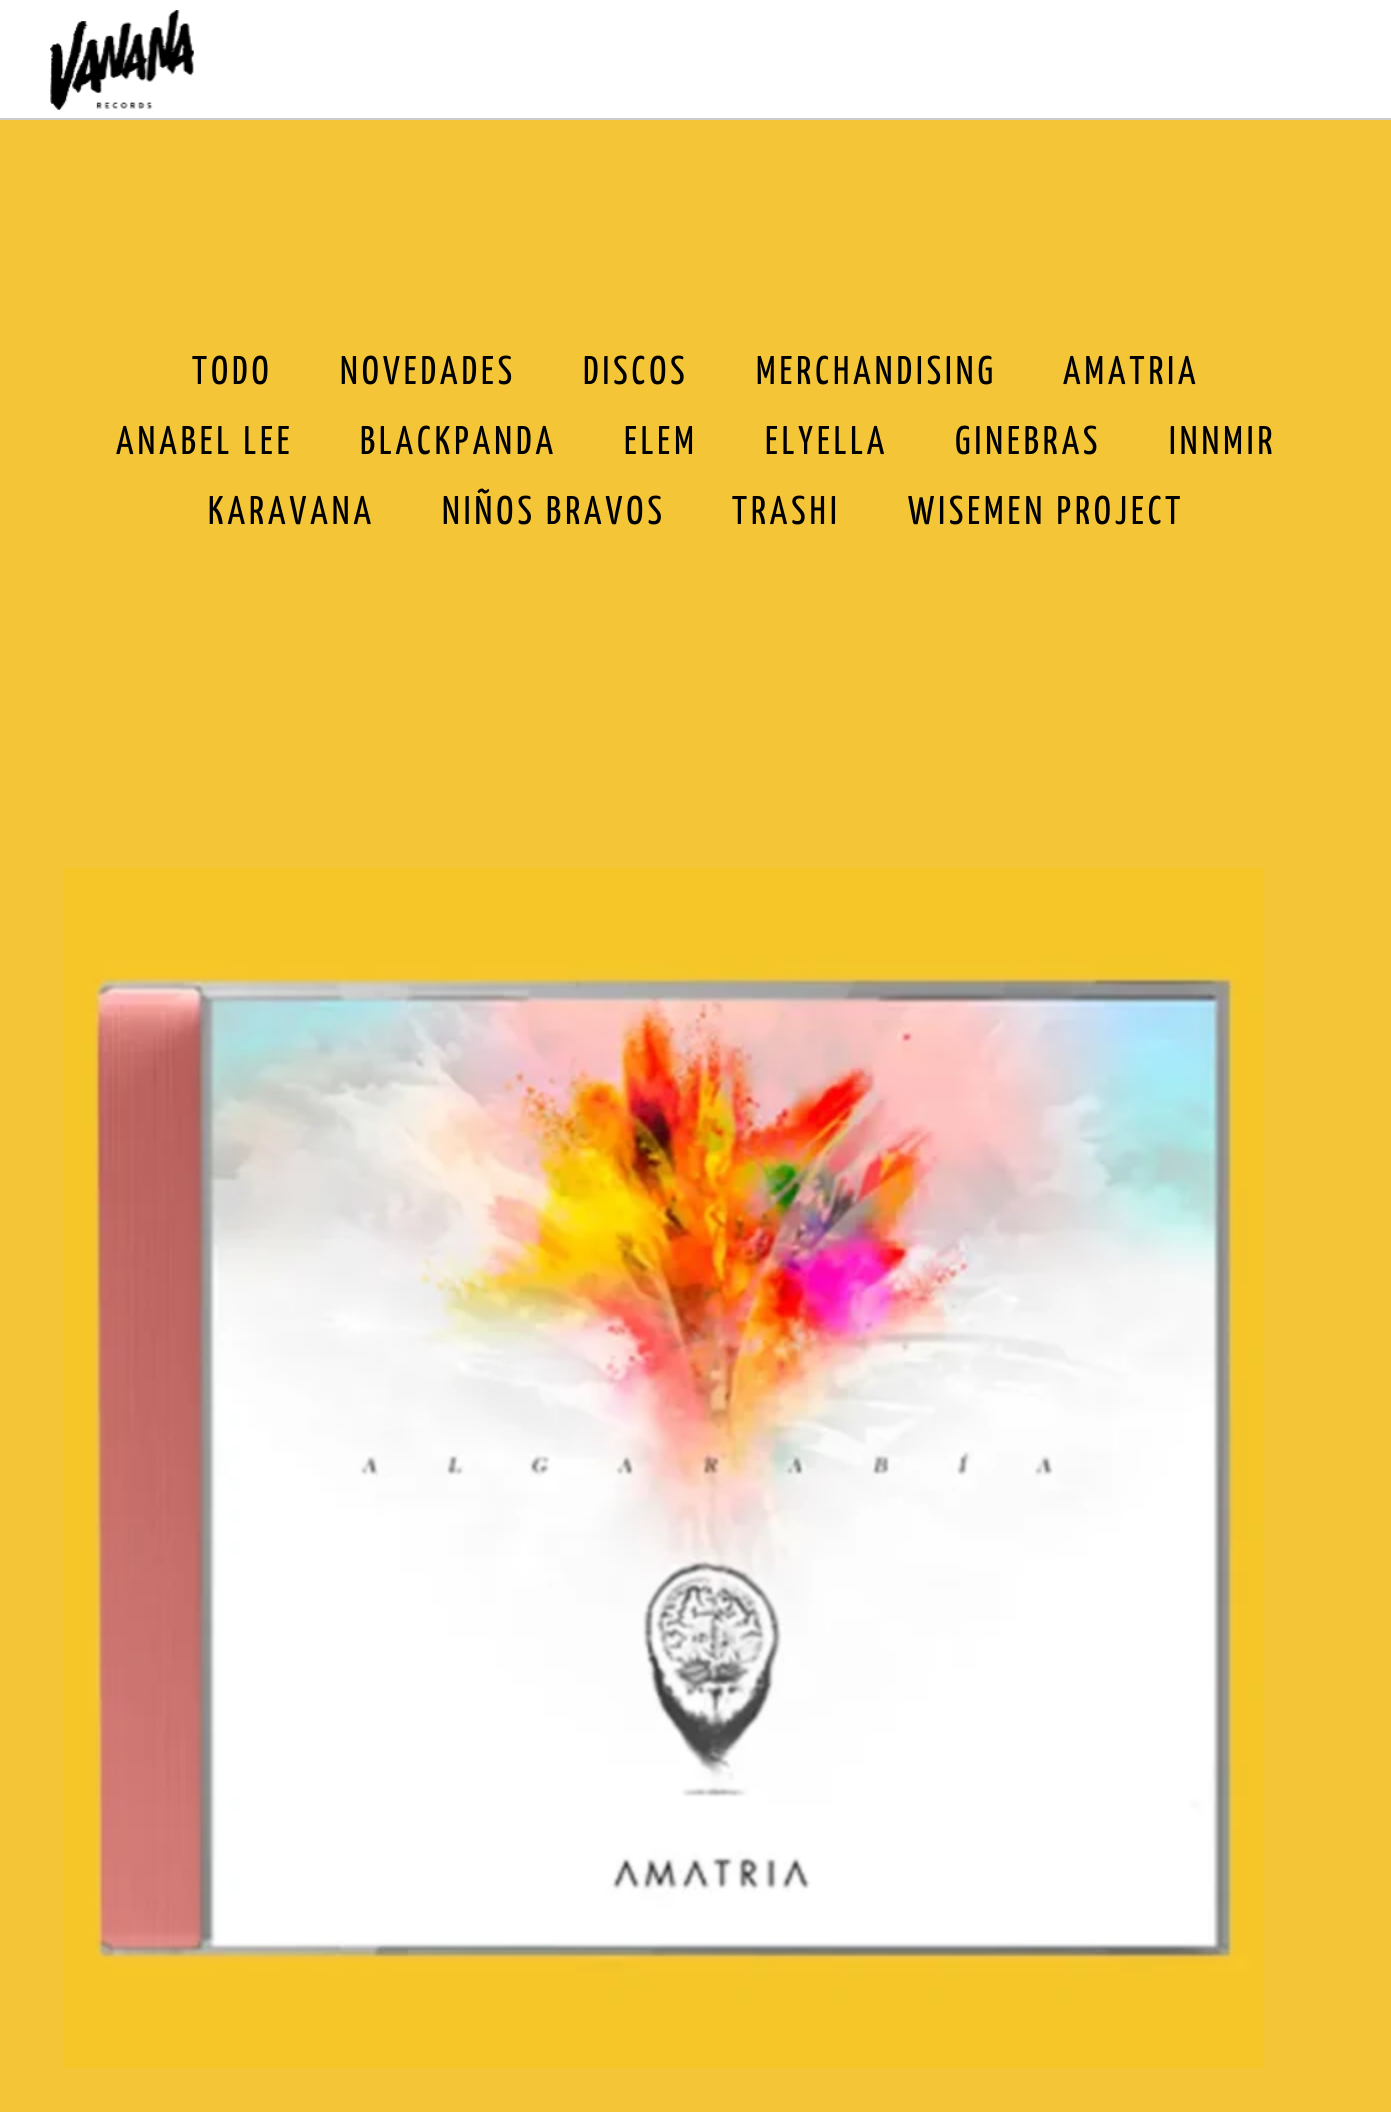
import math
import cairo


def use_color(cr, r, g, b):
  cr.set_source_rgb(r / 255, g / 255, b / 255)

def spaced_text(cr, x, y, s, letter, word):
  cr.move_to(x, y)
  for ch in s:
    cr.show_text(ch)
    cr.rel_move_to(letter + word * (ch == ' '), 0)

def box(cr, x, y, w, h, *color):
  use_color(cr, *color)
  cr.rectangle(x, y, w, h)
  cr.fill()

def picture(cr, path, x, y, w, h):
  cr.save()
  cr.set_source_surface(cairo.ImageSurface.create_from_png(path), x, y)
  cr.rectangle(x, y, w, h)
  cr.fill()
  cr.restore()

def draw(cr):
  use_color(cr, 255, 255, 255)
  cr.paint()
  picture(cr, "img_01.png", 50, 10, 144, 100)
  box(cr, 0, 118, 1391, 2, 204, 204, 204)
  box(cr, 0, 120, 1391, 1992, 244, 198, 55)
  picture(cr, "img_02.png", 64, 868, 1200, 1200)
  cr.select_font_face("Yanone Kaffeesatz")
  cr.set_font_size(40)
  use_color(cr, 0, 0, 0)
  spaced_text(cr, 192, 384, "TODO", 4, 0)
  spaced_text(cr, 340, 384, "NOVEDADES", 4, 0)
  spaced_text(cr, 583, 384, "DISCOS", 4, 0)
  spaced_text(cr, 756, 384, "MERCHANDISING", 4, 0)
  spaced_text(cr, 1063, 384, "AMATRIA", 4, 0)
  spaced_text(cr, 116, 454, "ANABEL LEE", 4, 0)
  spaced_text(cr, 360, 454, "BLACKPANDA", 4, 0)
  spaced_text(cr, 624, 454, "ELEM", 4, 0)
  spaced_text(cr, 765, 454, "ELYELLA", 4, 0)
  spaced_text(cr, 955, 454, "GINEBRAS", 4, 0)
  spaced_text(cr, 1169, 454, "INNMIR", 4, 0)
  spaced_text(cr, 208, 524, "KARAVANA", 4, 0)
  spaced_text(cr, 442, 524, "NIÑOS BRAVOS", 4, 0)
  spaced_text(cr, 732, 524, "TRASHI", 4, 0)
  spaced_text(cr, 908, 524, "WISEMEN PROJECT", 4, 0)


surface = cairo.ImageSurface(cairo.FORMAT_RGB24, 1391, 2112)
cr = cairo.Context(surface)
options = cairo.FontOptions()
options.set_hint_metrics(cairo.HINT_METRICS_OFF)
options.set_hint_style(cairo.HINT_STYLE_NONE)
cr.set_font_options(options)
cr.set_miter_limit(4)
draw(cr)
surface.write_to_png("out.png")
